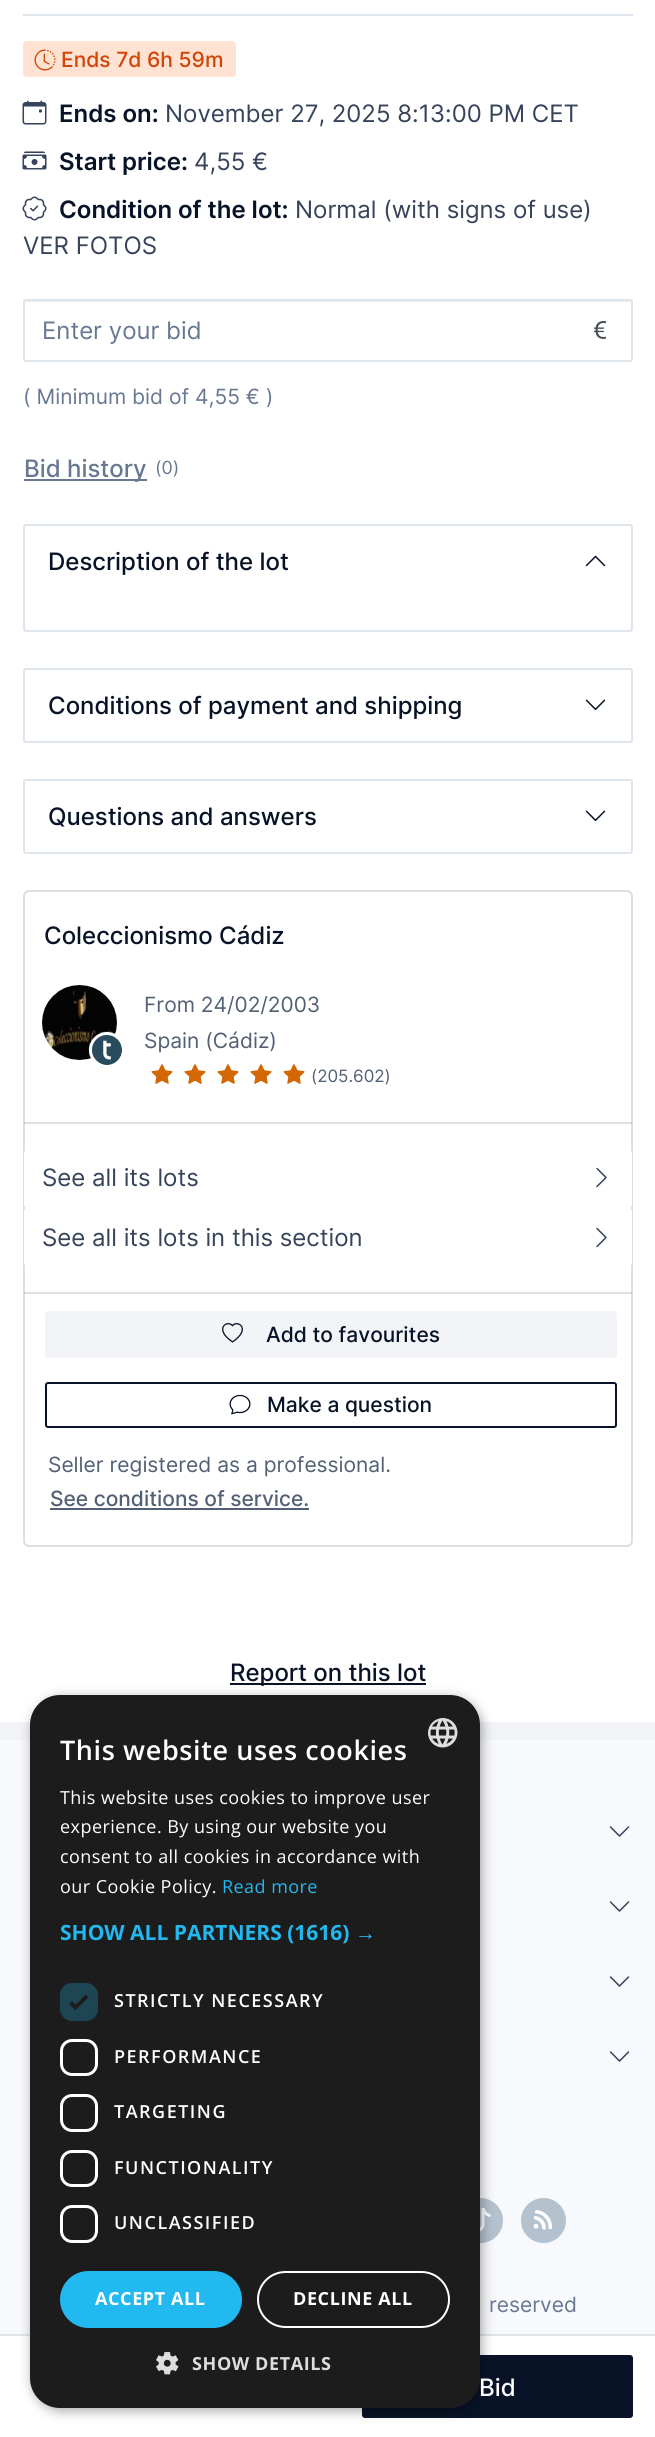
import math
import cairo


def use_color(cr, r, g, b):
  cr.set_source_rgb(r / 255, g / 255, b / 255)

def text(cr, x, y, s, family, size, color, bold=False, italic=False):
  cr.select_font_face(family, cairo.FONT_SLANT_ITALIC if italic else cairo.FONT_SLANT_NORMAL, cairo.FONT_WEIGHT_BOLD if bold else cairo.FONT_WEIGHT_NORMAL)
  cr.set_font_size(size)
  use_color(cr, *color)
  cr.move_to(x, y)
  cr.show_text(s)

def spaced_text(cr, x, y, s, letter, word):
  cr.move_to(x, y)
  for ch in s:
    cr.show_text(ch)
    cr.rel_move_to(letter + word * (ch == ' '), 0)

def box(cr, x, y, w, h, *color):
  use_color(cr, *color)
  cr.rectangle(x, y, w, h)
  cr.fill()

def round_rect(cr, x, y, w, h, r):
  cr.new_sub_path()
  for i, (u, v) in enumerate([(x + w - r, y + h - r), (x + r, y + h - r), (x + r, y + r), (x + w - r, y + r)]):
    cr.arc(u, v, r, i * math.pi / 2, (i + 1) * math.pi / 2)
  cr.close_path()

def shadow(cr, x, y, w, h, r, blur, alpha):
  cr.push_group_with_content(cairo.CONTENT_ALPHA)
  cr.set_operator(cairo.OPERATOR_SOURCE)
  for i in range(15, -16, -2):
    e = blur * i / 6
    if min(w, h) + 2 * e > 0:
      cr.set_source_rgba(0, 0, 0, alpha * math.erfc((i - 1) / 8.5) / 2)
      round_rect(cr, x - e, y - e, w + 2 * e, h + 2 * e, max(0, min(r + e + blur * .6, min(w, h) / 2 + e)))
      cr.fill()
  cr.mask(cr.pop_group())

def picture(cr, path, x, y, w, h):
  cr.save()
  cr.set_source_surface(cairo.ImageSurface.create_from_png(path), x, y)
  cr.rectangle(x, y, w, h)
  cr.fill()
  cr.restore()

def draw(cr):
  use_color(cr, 255, 255, 255)
  cr.paint()
  box(cr, 23, 14, 610, 2, 223, 229, 236)
  use_color(cr, 255, 226, 209)
  round_rect(cr, 24, 42, 211, 34, 3)
  cr.fill_preserve()
  cr.stroke()
  picture(cr, "img_01.png", 34, 49, 22, 22)
  picture(cr, "img_02.png", 22, 100, 25, 25)
  picture(cr, "img_03.png", 22, 151, 25, 19)
  picture(cr, "img_04.png", 22, 196, 25, 25)
  use_color(cr, 236, 236, 236)
  cr.new_path()
  cr.move_to(26, 302)
  cr.line_to(630, 302)
  cr.curve_to(631, 302, 632, 302, 632, 303)
  cr.line_to(632, 300)
  cr.line_to(630, 300)
  cr.line_to(26, 300)
  cr.line_to(24, 301)
  cr.line_to(24, 303)
  cr.curve_to(24, 302, 25, 302, 26, 302)
  cr.close_path()
  cr.fill()
  round_rect(cr, 24, 300, 608, 61, 2)
  use_color(cr, 223, 229, 236)
  cr.stroke()
  picture(cr, "img_05.png", 594, 321, 12, 18)
  box(cr, 24, 479, 123, 2, 104, 119, 146)
  round_rect(cr, 24, 525, 608, 106, 2)
  use_color(cr, 223, 229, 236)
  cr.stroke()
  picture(cr, "img_06.png", 585, 555, 21, 12)
  round_rect(cr, 24, 669, 608, 73, 2)
  cr.stroke()
  picture(cr, "img_07.png", 585, 699, 21, 11)
  round_rect(cr, 24, 780, 608, 73, 2)
  cr.stroke()
  picture(cr, "img_07.png", 585, 810, 21, 11)
  round_rect(cr, 24, 891, 608, 655, 5)
  use_color(cr, 223, 223, 223)
  cr.stroke()
  cr.set_source_rgba(0, 0, 0, 0.12)
  cr.rectangle(24, 1122, 608, 2)
  cr.fill()
  picture(cr, "img_08.png", 42, 985, 75, 75)
  picture(cr, "img_09.png", 88, 1031, 37, 37)
  cr.arc(107, 1050, 16.5, 0, 2 * math.pi)
  use_color(cr, 255, 255, 255)
  cr.set_line_width(3)
  cr.stroke()
  picture(cr, "img_10.png", 151, 1064, 22, 20)
  picture(cr, "img_10.png", 184, 1064, 22, 20)
  picture(cr, "img_10.png", 217, 1064, 22, 20)
  picture(cr, "img_10.png", 250, 1064, 22, 20)
  picture(cr, "img_10.png", 283, 1064, 22, 20)
  cr.new_path()
  cr.move_to(30, 1148)
  cr.line_to(626, 1148)
  cr.curve_to(629.5, 1148, 632, 1150.5, 632, 1154)
  cr.line_to(632, 1205)
  cr.curve_to(632, 1206.5, 630.5, 1208, 629, 1208)
  cr.line_to(27, 1208)
  cr.curve_to(25.5, 1208, 24, 1206.5, 24, 1205)
  cr.line_to(24, 1154)
  cr.curve_to(24, 1150.5, 26.5, 1148, 30, 1148)
  cr.close_path()
  cr.fill()
  picture(cr, "img_11.png", 596, 1167, 11, 21)
  cr.new_path()
  cr.move_to(27, 1208)
  cr.line_to(629, 1208)
  cr.curve_to(630.5, 1208, 632, 1209.5, 632, 1211)
  cr.line_to(632, 1262)
  cr.curve_to(632, 1265.5, 629.5, 1268, 626, 1268)
  cr.line_to(30, 1268)
  cr.curve_to(26.5, 1268, 24, 1265.5, 24, 1262)
  cr.line_to(24, 1211)
  cr.curve_to(24, 1209.5, 25.5, 1208, 27, 1208)
  cr.close_path()
  cr.fill()
  picture(cr, "img_11.png", 596, 1227, 11, 21)
  cr.set_source_rgba(0, 0, 0, 0.12)
  cr.rectangle(24, 1292, 608, 2)
  cr.fill()
  use_color(cr, 242, 244, 248)
  round_rect(cr, 46, 1312, 570, 45, 2)
  cr.fill_preserve()
  cr.set_line_width(2)
  cr.stroke()
  picture(cr, "img_12.png", 222, 1323, 21, 20)
  round_rect(cr, 46, 1383, 570, 44, 2)
  use_color(cr, 8, 19, 39)
  cr.stroke()
  picture(cr, "img_13.png", 229, 1394, 22, 21)
  box(cr, 50, 1508, 259, 2, 83, 95, 116)
  box(cr, 230, 1683, 196, 2, 8, 19, 39)
  box(cr, 0, 2334, 655, 2, 223, 229, 236)
  use_color(cr, 8, 19, 39)
  round_rect(cr, 363, 2356, 269, 61, 2)
  cr.fill_preserve()
  cr.stroke()
  box(cr, 0, 1740, 655, 594, 248, 249, 252)
  box(cr, 0, 1722, 655, 18, 242, 244, 248)
  use_color(cr, 180, 193, 207)
  cr.arc(480.5, 2220.5, 22.5, 0, 2 * math.pi)
  cr.fill()
  picture(cr, "img_17.png", 480, 2208, 11, 24)
  use_color(cr, 0, 0, 0)
  shadow(cr, 32, 1698, 450, 713, 30, 6, 0.35)
  use_color(cr, 28, 28, 28)
  round_rect(cr, 30, 1695, 450, 713, 30)
  cr.fill()
  picture(cr, "img_14.png", 428, 1718, 30, 30)
  use_color(cr, 30, 69, 83)
  round_rect(cr, 60, 1983, 38, 38, 12)
  cr.fill()
  cr.new_path()
  cr.move_to(70.5, 2002.5)
  cr.line_to(75.5, 2007.5)
  cr.line_to(87, 1996)
  use_color(cr, 28, 28, 28)
  cr.set_line_width(3.9)
  cr.stroke()
  round_rect(cr, 61.5, 2040.5, 35, 34, 10.5)
  use_color(cr, 255, 255, 255)
  cr.set_line_width(3)
  cr.stroke()
  round_rect(cr, 61.5, 2095.5, 35, 35, 10.5)
  cr.stroke()
  round_rect(cr, 61.5, 2151.5, 35, 34, 10.5)
  cr.stroke()
  round_rect(cr, 61.5, 2206.5, 35, 35, 10.5)
  cr.stroke()
  use_color(cr, 34, 184, 240)
  round_rect(cr, 60, 2271, 182, 57, 28.5)
  cr.fill()
  round_rect(cr, 258, 2272, 191, 55, 27.5)
  use_color(cr, 255, 255, 255)
  cr.set_line_width(2)
  cr.stroke()
  picture(cr, "img_15.png", 156, 2352, 23, 23)
  picture(cr, "img_16.png", 609, 1826, 21, 11)
  picture(cr, "img_16.png", 609, 1901, 21, 11)
  picture(cr, "img_16.png", 609, 1976, 21, 11)
  picture(cr, "img_16.png", 609, 2051, 21, 11)
  use_color(cr, 180, 193, 207)
  cr.arc(543.5, 2220.5, 22.5, 0, 2 * math.pi)
  cr.fill()
  picture(cr, "img_18.png", 533, 2210, 19, 20)
  text(cr, 61, 67, "Ends 7d 6h 59m", "Inter Medium", 21, (210, 67, 4))
  text(cr, 59, 122, "Ends on:", "Inter SemiBold", 24, (8, 19, 39))
  text(cr, 165, 122, "November 27, 2025 8:13:00 PM CET", "Inter", 24, (54, 67, 90))
  text(cr, 59, 170, "Start price:", "Inter SemiBold", 24, (8, 19, 39))
  text(cr, 194, 170, "4,55 €", "Inter", 24, (54, 67, 90))
  text(cr, 59, 218, "Condition of the lot:", "Inter SemiBold", 24, (8, 19, 39))
  text(cr, 295, 218, "Normal (with signs of use)", "Inter", 24, (54, 67, 90))
  text(cr, 23, 254, "VER FOTOS", "Inter", 24, (54, 67, 90))
  text(cr, 42, 339, "Enter your bid", "Inter", 24, (104, 119, 146))
  text(cr, 23, 404, "( Minimum bid of 4,55 € )", "Inter", 21, (104, 119, 146))
  text(cr, 24, 477, "Bid history", "Inter Medium", 24, (104, 119, 146))
  text(cr, 155, 474, "(0)", "Inter", 18, (104, 119, 146))
  text(cr, 48, 570, "Description of the lot", "Inter Medium", 24, (8, 19, 39))
  text(cr, 48, 714, "Conditions of payment and shipping", "Inter Medium", 24, (8, 19, 39))
  text(cr, 48, 825, "Questions and answers", "Inter Medium", 24, (8, 19, 39))
  text(cr, 44, 944, "Coleccionismo Cádiz", "Inter Medium", 24, (8, 19, 39))
  text(cr, 144, 1012, "From 24/02/2003", "Inter", 21, (83, 95, 116))
  text(cr, 144, 1048, "Spain (Cádiz)", "Inter", 21, (83, 95, 116))
  text(cr, 311, 1082, "(205.602)", "Inter", 17, (83, 95, 116))
  text(cr, 42, 1186, "See all its lots", "Inter", 24, (54, 67, 90))
  text(cr, 42, 1246, "See all its lots in this section", "Inter", 24, (54, 67, 90))
  text(cr, 266, 1342, "Add to favourites", "Inter Medium", 21, (8, 19, 39))
  text(cr, 267, 1412, "Make a question", "Inter Medium", 21, (8, 19, 39))
  text(cr, 48, 1472, "Seller registered as a professional.", "Inter", 21, (83, 95, 116))
  text(cr, 50, 1506, "See conditions of service.", "Inter Medium", 21, (83, 95, 116))
  text(cr, 230, 1681, "Report on this lot", "Inter Medium", 24, (8, 19, 39))
  text(cr, 479, 2396, "Bid", "Inter Medium", 24, (255, 255, 255))
  cr.select_font_face("Open Sans SemiBold")
  cr.set_font_size(27)
  spaced_text(cr, 60, 1760, "This website uses cookies", 0.6, 0)
  cr.select_font_face("Open Sans")
  cr.set_font_size(18)
  spaced_text(cr, 60, 1804, "This website uses cookies to improve user", 0.45, 0)
  spaced_text(cr, 60, 1833, "experience. By using our website you", 0.45, 0)
  spaced_text(cr, 60, 1863, "consent to all cookies in accordance with", 0.45, 0)
  spaced_text(cr, 60, 1893, "our Cookie Policy.", 0.45, 0)
  use_color(cr, 34, 184, 240)
  spaced_text(cr, 222, 1893, "Read more", 0.45, 0)
  text(cr, 60, 1940, "SHOW ALL PARTNERS (1616)", "Open Sans", 21, (34, 184, 240), bold=True)
  text(cr, 355, 1940, "→", "Liberation Sans", 21, (34, 184, 240), bold=True)
  cr.select_font_face("Open Sans SemiBold")
  cr.set_font_size(18)
  use_color(cr, 255, 255, 255)
  spaced_text(cr, 114, 2007, "STRICTLY NECESSARY", 1.5, 0)
  spaced_text(cr, 114, 2063, "PERFORMANCE", 1.5, 0)
  spaced_text(cr, 114, 2118, "TARGETING", 1.5, 0)
  spaced_text(cr, 114, 2174, "FUNCTIONALITY", 1.5, 0)
  spaced_text(cr, 114, 2229, "UNCLASSIFIED", 1.5, 0)
  cr.select_font_face("Open Sans", cairo.FONT_SLANT_NORMAL, cairo.FONT_WEIGHT_BOLD)
  spaced_text(cr, 95, 2305, "ACCEPT ALL", 0.6, 0)
  spaced_text(cr, 293, 2305, "DECLINE ALL", 0.6, 0)
  use_color(cr, 221, 221, 221)
  spaced_text(cr, 192, 2370, "SHOW DETAILS", 0.6, 0)
  text(cr, 489, 2312, "reserved", "Inter", 21, (104, 119, 146))


surface = cairo.ImageSurface(cairo.FORMAT_RGB24, 655, 2437)
cr = cairo.Context(surface)
options = cairo.FontOptions()
options.set_hint_metrics(cairo.HINT_METRICS_OFF)
options.set_hint_style(cairo.HINT_STYLE_NONE)
cr.set_font_options(options)
cr.set_miter_limit(4)
draw(cr)
surface.write_to_png("out.png")
